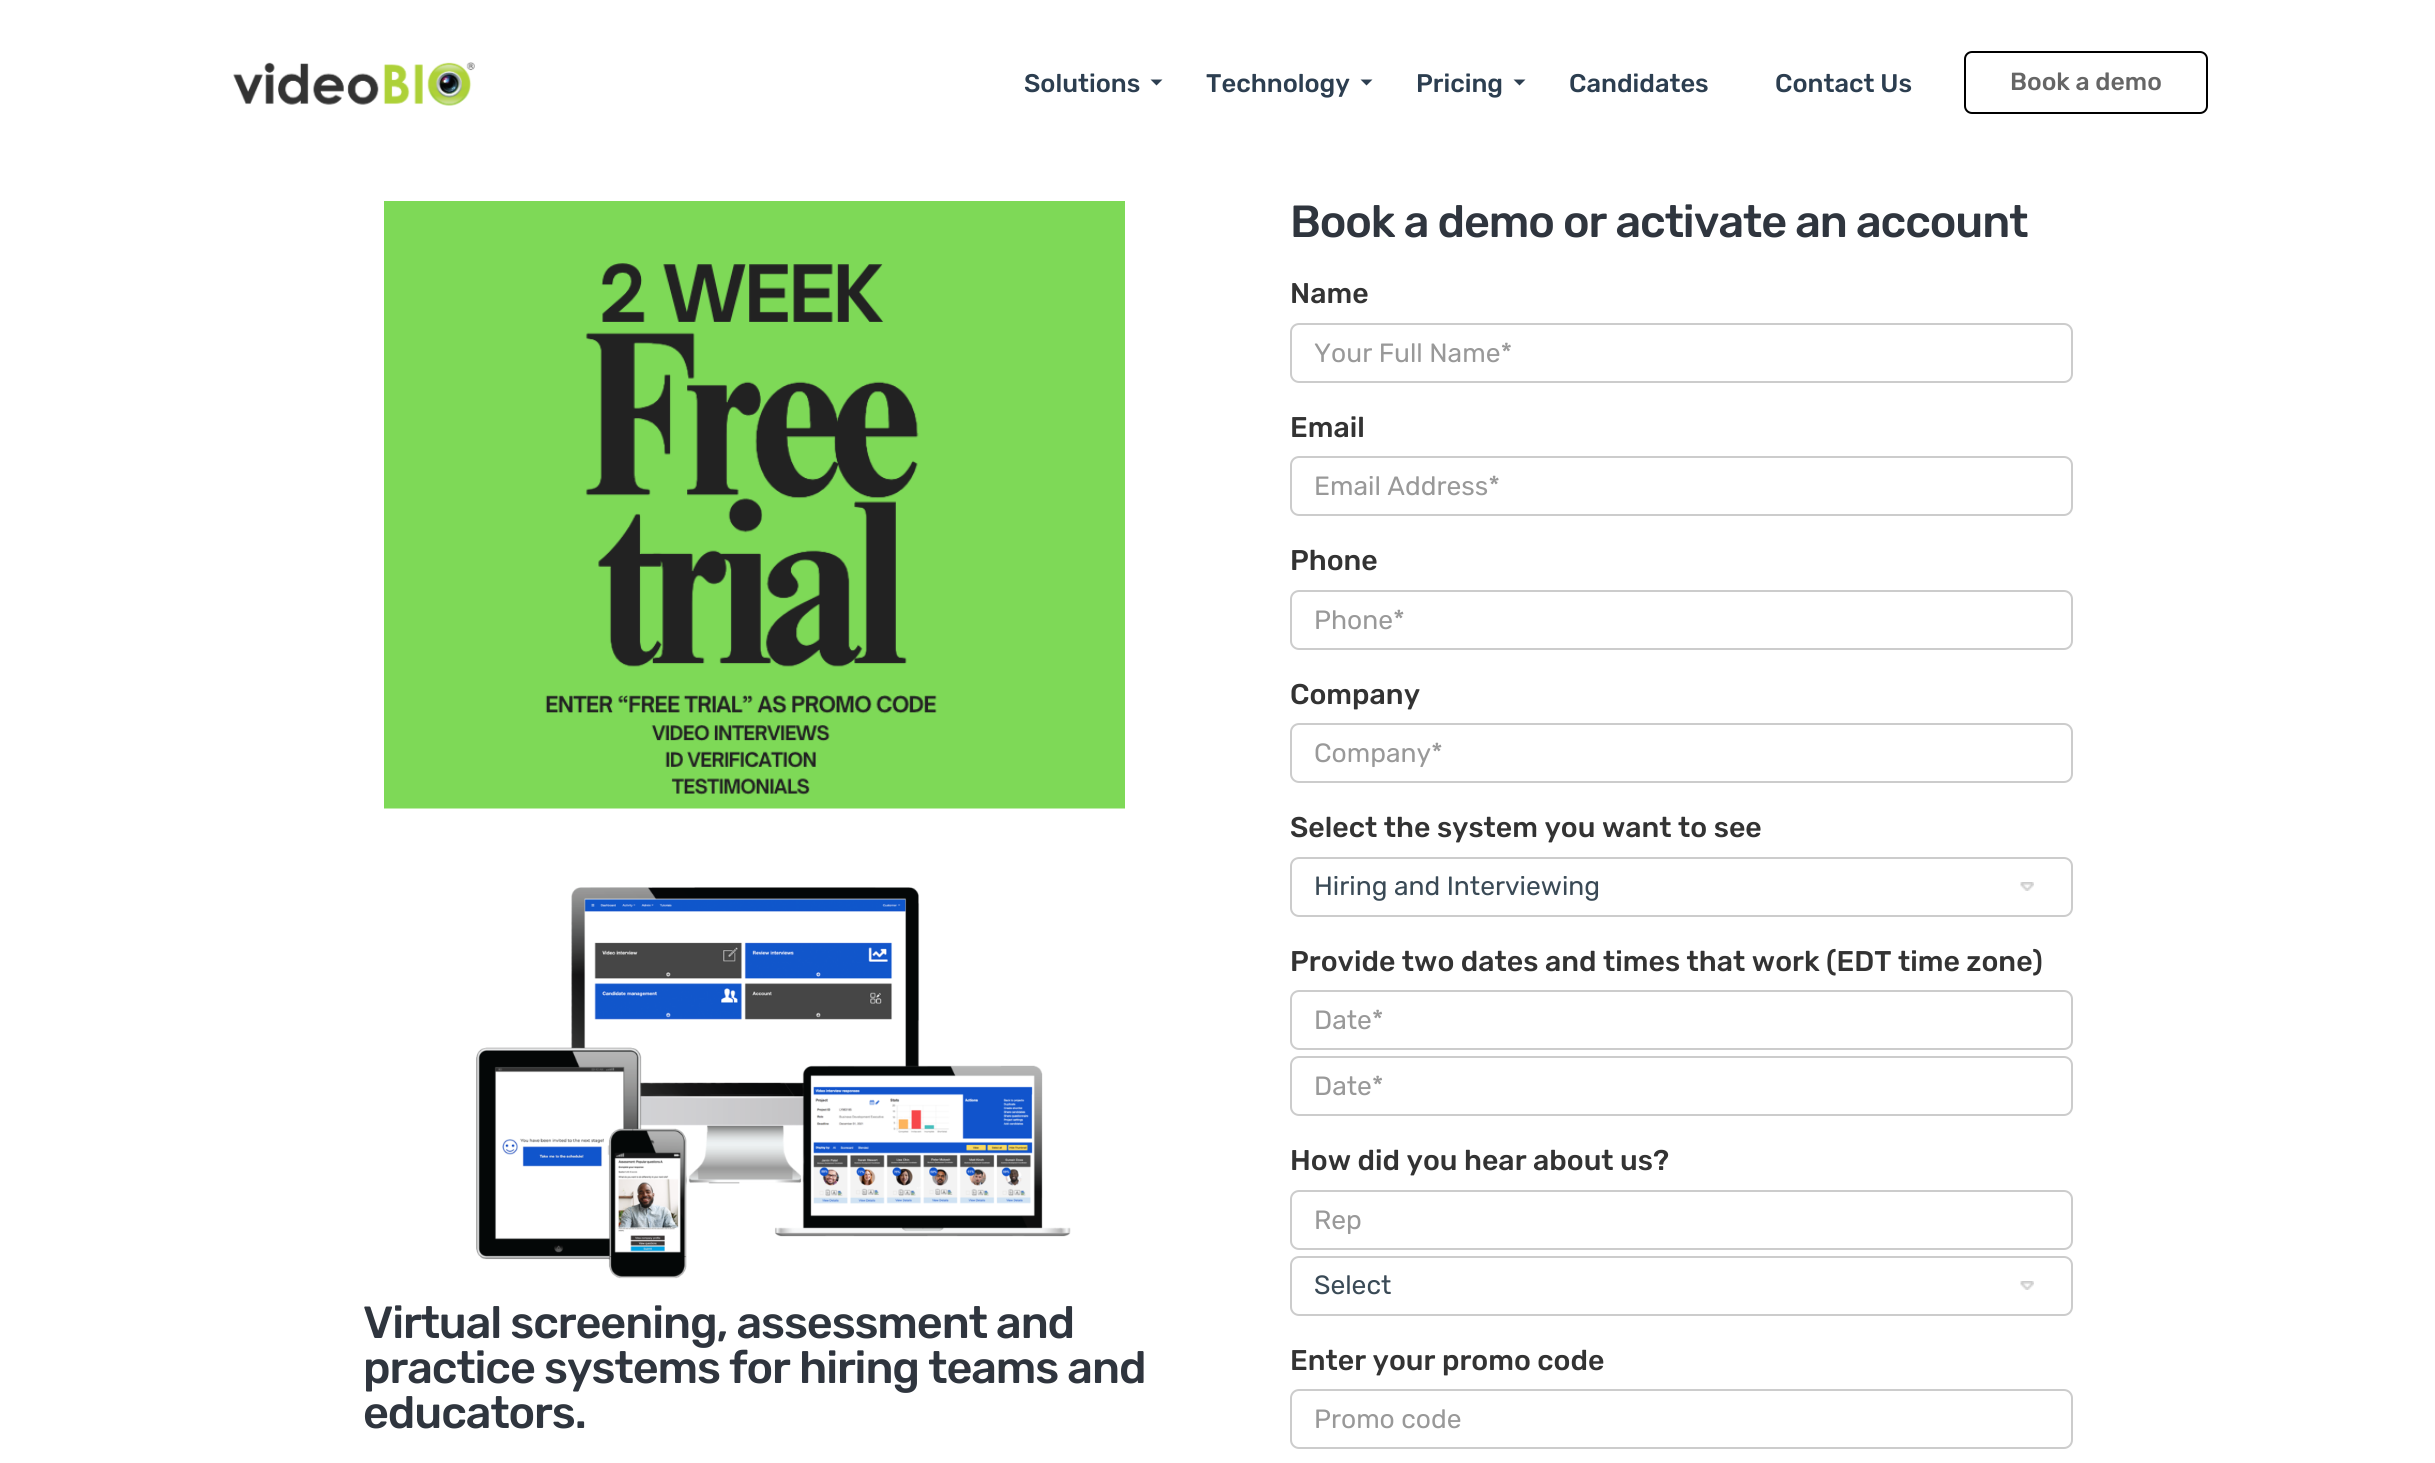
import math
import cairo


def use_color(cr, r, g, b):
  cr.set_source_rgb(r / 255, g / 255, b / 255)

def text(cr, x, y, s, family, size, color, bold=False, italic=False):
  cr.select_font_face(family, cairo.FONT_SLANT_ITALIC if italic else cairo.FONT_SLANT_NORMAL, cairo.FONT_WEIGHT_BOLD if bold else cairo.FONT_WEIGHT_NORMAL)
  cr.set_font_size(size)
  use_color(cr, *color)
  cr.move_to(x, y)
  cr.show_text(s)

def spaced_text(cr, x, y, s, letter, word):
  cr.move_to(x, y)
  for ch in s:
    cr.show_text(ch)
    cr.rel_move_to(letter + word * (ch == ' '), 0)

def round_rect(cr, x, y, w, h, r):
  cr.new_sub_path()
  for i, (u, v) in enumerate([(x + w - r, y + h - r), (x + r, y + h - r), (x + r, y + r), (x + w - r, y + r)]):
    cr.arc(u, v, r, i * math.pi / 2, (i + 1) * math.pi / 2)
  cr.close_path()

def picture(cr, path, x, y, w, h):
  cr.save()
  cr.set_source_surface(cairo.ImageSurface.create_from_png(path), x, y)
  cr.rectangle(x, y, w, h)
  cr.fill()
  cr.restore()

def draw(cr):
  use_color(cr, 255, 255, 255)
  cr.paint()
  picture(cr, "img_01.png", 233, 62, 242, 44)
  use_color(cr, 44, 62, 80)
  cr.new_path()
  cr.move_to(1150.5, 79.5)
  cr.line_to(1162.5, 79.5)
  cr.line_to(1156.5, 85.5)
  cr.close_path()
  cr.fill()
  cr.new_path()
  cr.move_to(1360.5, 79.5)
  cr.line_to(1372.5, 79.5)
  cr.line_to(1366.5, 85.5)
  cr.close_path()
  cr.fill()
  cr.new_path()
  cr.move_to(1513.5, 79.5)
  cr.line_to(1525.5, 79.5)
  cr.line_to(1519.5, 85.5)
  cr.close_path()
  cr.fill()
  round_rect(cr, 1965, 52, 242, 61, 7)
  use_color(cr, 0, 0, 0)
  cr.stroke()
  picture(cr, "img_02.png", 384, 201, 741, 608)
  picture(cr, "img_03.png", 476, 887, 595, 392)
  round_rect(cr, 1291, 324, 781, 58, 8)
  use_color(cr, 204, 204, 204)
  cr.stroke()
  round_rect(cr, 1291, 457, 781, 58, 8)
  cr.stroke()
  round_rect(cr, 1291, 591, 781, 58, 8)
  cr.stroke()
  round_rect(cr, 1291, 724, 781, 58, 8)
  cr.stroke()
  picture(cr, "img_04.png", 2020, 882, 14, 9)
  round_rect(cr, 1291, 858, 781, 58, 8)
  cr.stroke()
  round_rect(cr, 1291, 991, 781, 58, 8)
  cr.stroke()
  round_rect(cr, 1291, 1057, 781, 58, 8)
  cr.stroke()
  round_rect(cr, 1291, 1191, 781, 58, 8)
  cr.stroke()
  picture(cr, "img_04.png", 2020, 1281, 14, 9)
  round_rect(cr, 1291, 1257, 781, 58, 8)
  cr.stroke()
  round_rect(cr, 1291, 1390, 781, 58, 8)
  cr.stroke()
  text(cr, 1024, 92, "Solutions", "Rubik Medium", 25.5, (44, 62, 80))
  text(cr, 1206, 92, "Technology", "Rubik Medium", 25.5, (44, 62, 80))
  text(cr, 1416, 92, "Pricing", "Rubik Medium", 25.5, (44, 62, 80))
  text(cr, 1569, 92, "Candidates", "Rubik Medium", 25.5, (44, 62, 80))
  text(cr, 1775, 92, "Contact Us", "Rubik Medium", 25.5, (44, 62, 80))
  text(cr, 2010, 90, "Book a demo", "Rubik Medium", 24.75, (102, 102, 102))
  cr.set_font_size(45)
  use_color(cr, 47, 53, 62)
  spaced_text(cr, 363, 1338, "Virtual screening, assessment and", -1.1, 0)
  spaced_text(cr, 363, 1383, "practice systems for hiring teams and", -1.1, 0)
  spaced_text(cr, 363, 1428, "educators.", -1.1, 0)
  spaced_text(cr, 1290, 237, "Book a demo or activate an account", -1.1, 0)
  text(cr, 1290, 303, "Name", "Rubik Medium", 28.5, (51, 51, 51))
  text(cr, 1314, 362, "Your Full Name*", "Rubik", 26.4, (153, 153, 153))
  text(cr, 1290, 437, "Email", "Rubik Medium", 28.5, (51, 51, 51))
  text(cr, 1314, 495, "Email Address*", "Rubik", 26.4, (153, 153, 153))
  text(cr, 1290, 570, "Phone", "Rubik Medium", 28.5, (51, 51, 51))
  text(cr, 1314, 629, "Phone*", "Rubik", 26.4, (153, 153, 153))
  text(cr, 1290, 704, "Company", "Rubik Medium", 28.5, (51, 51, 51))
  text(cr, 1314, 762, "Company*", "Rubik", 26.4, (153, 153, 153))
  text(cr, 1290, 837, "Select the system you want to see", "Rubik Medium", 28.5, (51, 51, 51))
  text(cr, 1314, 895, "Hiring and Interviewing", "Rubik", 26.4, (58, 74, 86))
  text(cr, 1290, 971, "Provide two dates and times that work (EDT time zone)", "Rubik Medium", 28.5, (51, 51, 51))
  text(cr, 1314, 1029, "Date*", "Rubik", 26.4, (153, 153, 153))
  text(cr, 1314, 1095, "Date*", "Rubik", 26.4, (153, 153, 153))
  text(cr, 1290, 1170, "How did you hear about us?", "Rubik Medium", 28.5, (51, 51, 51))
  text(cr, 1314, 1229, "Rep", "Rubik", 26.4, (153, 153, 153))
  text(cr, 1314, 1294, "Select", "Rubik", 26.4, (58, 74, 86))
  text(cr, 1290, 1370, "Enter your promo code", "Rubik Medium", 28.5, (51, 51, 51))
  text(cr, 1314, 1428, "Promo code", "Rubik", 26.4, (153, 153, 153))


surface = cairo.ImageSurface(cairo.FORMAT_RGB24, 2435, 1463)
cr = cairo.Context(surface)
options = cairo.FontOptions()
options.set_hint_metrics(cairo.HINT_METRICS_OFF)
options.set_hint_style(cairo.HINT_STYLE_NONE)
cr.set_font_options(options)
cr.set_miter_limit(4)
draw(cr)
surface.write_to_png("out.png")
